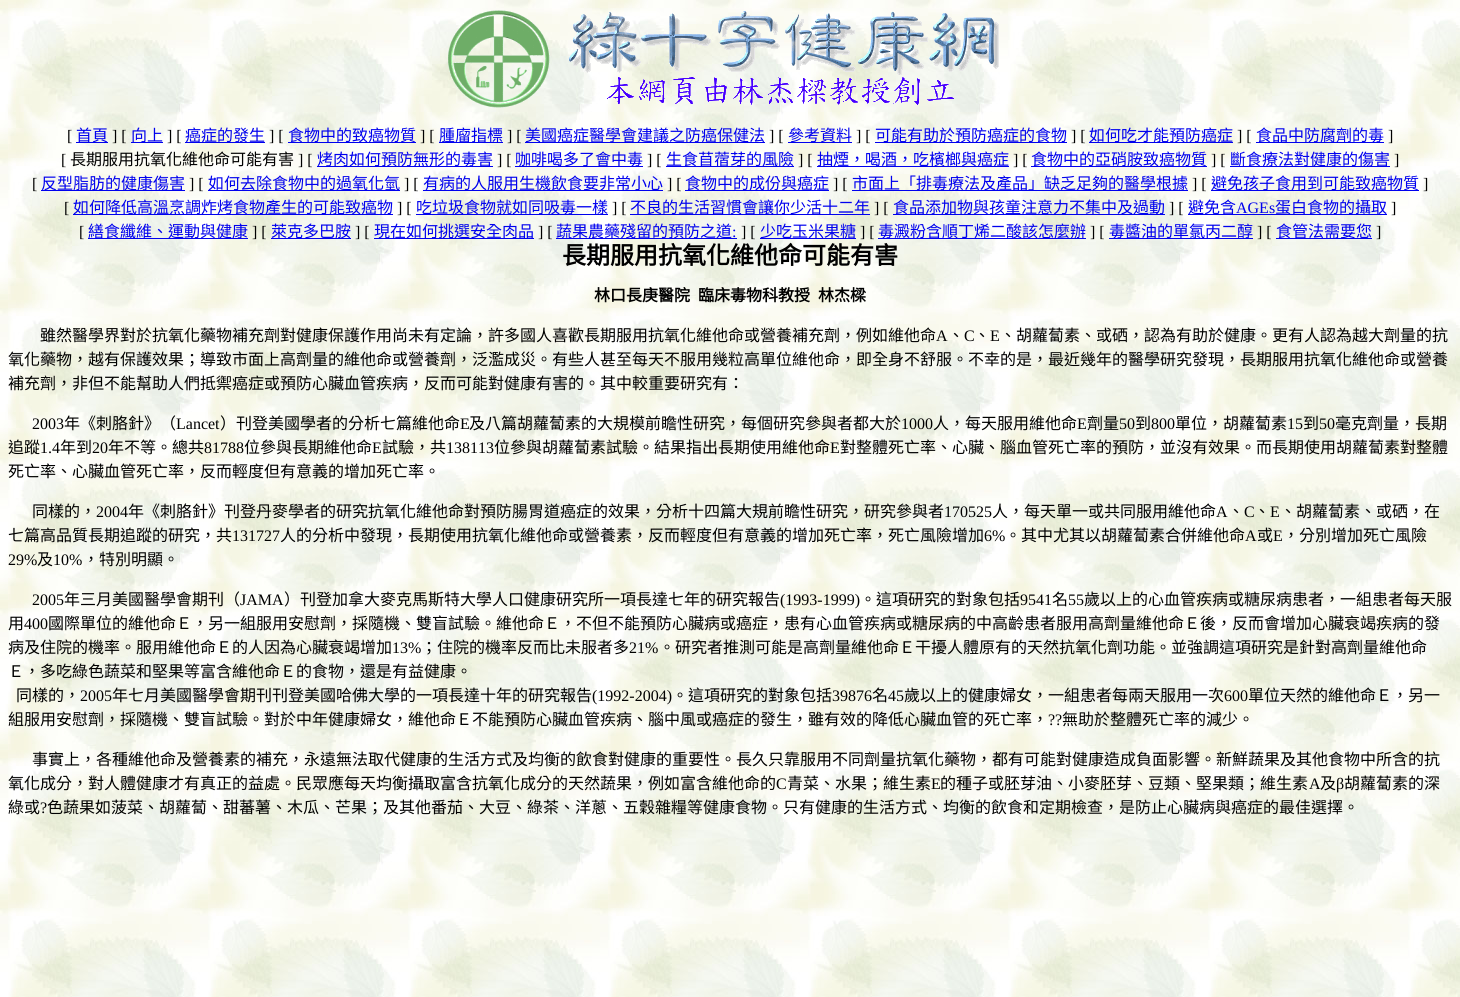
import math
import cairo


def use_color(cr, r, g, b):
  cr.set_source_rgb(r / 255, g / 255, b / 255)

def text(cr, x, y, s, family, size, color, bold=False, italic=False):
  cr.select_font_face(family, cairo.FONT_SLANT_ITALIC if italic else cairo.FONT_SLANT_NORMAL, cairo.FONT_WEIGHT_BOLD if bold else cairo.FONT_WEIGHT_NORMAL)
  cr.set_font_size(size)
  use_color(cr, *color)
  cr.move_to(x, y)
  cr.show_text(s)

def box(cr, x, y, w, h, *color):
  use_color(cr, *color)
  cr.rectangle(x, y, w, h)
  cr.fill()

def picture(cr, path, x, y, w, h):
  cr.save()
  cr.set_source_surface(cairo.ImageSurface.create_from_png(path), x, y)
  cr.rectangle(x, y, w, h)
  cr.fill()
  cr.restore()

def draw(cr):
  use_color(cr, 255, 255, 255)
  cr.paint()
  picture(cr, "img_01.png", 0, 0, 1460, 997)
  picture(cr, "img_02.png", 448, 10, 551, 98)
  box(cr, 76, 142, 32, 1, 0, 0, 238)
  box(cr, 131, 142, 32, 1, 0, 0, 238)
  box(cr, 185, 142, 80, 1, 0, 0, 238)
  box(cr, 288, 142, 128, 1, 0, 0, 238)
  box(cr, 439, 142, 64, 1, 0, 0, 238)
  box(cr, 525, 142, 240, 1, 0, 0, 238)
  box(cr, 788, 142, 64, 1, 0, 0, 238)
  box(cr, 875, 142, 192, 1, 0, 0, 238)
  box(cr, 1089, 142, 144, 1, 0, 0, 238)
  box(cr, 1256, 142, 128, 1, 0, 0, 238)
  box(cr, 317, 166, 176, 1, 0, 0, 238)
  box(cr, 515, 166, 128, 1, 0, 0, 238)
  box(cr, 666, 166, 128, 1, 0, 0, 238)
  box(cr, 817, 166, 192, 1, 0, 0, 238)
  box(cr, 1031, 166, 176, 1, 0, 0, 238)
  box(cr, 1230, 166, 160, 1, 0, 0, 238)
  box(cr, 41, 190, 144, 1, 0, 0, 238)
  box(cr, 208, 190, 192, 1, 0, 0, 238)
  box(cr, 423, 190, 240, 1, 0, 0, 238)
  box(cr, 685, 190, 144, 1, 0, 0, 238)
  box(cr, 852, 190, 336, 1, 0, 0, 238)
  box(cr, 1211, 190, 208, 1, 0, 0, 238)
  box(cr, 73, 214, 320, 1, 0, 0, 238)
  box(cr, 416, 214, 192, 1, 0, 0, 238)
  box(cr, 630, 214, 240, 1, 0, 0, 238)
  box(cr, 893, 214, 272, 1, 0, 0, 238)
  box(cr, 1188, 214, 199, 1, 0, 0, 238)
  box(cr, 88, 238, 160, 1, 0, 0, 238)
  box(cr, 271, 238, 80, 1, 0, 0, 238)
  box(cr, 374, 238, 160, 1, 0, 0, 238)
  box(cr, 556, 238, 181, 1, 0, 0, 238)
  box(cr, 760, 238, 96, 1, 0, 0, 238)
  box(cr, 878, 238, 208, 1, 0, 0, 238)
  box(cr, 1109, 238, 144, 1, 0, 0, 238)
  box(cr, 1276, 238, 96, 1, 0, 0, 238)
  text(cr, 67, 141, "[", "Liberation Serif", 16, (0, 0, 0))
  text(cr, 76, 141, "首頁", "Noto Sans CJK TC", 16, (0, 0, 238))
  text(cr, 112, 141, "] [", "Liberation Serif", 16, (0, 0, 0))
  text(cr, 131, 141, "向上", "Noto Sans CJK TC", 16, (0, 0, 238))
  text(cr, 167, 141, "] [", "Liberation Serif", 16, (0, 0, 0))
  text(cr, 185, 141, "癌症的發生", "Noto Sans CJK TC", 16, (0, 0, 238))
  text(cr, 269, 141, "] [", "Liberation Serif", 16, (0, 0, 0))
  text(cr, 288, 141, "食物中的致癌物質", "Noto Sans CJK TC", 16, (0, 0, 238))
  text(cr, 420, 141, "] [", "Liberation Serif", 16, (0, 0, 0))
  text(cr, 439, 141, "腫廇指標", "Noto Sans CJK TC", 16, (0, 0, 238))
  text(cr, 507, 141, "] [", "Liberation Serif", 16, (0, 0, 0))
  text(cr, 525, 141, "美國癌症醫學會建議之防癌保健法", "Noto Sans CJK TC", 16, (0, 0, 238))
  text(cr, 769, 141, "] [", "Liberation Serif", 16, (0, 0, 0))
  text(cr, 788, 141, "參考資料", "Noto Sans CJK TC", 16, (0, 0, 238))
  text(cr, 856, 141, "] [", "Liberation Serif", 16, (0, 0, 0))
  text(cr, 875, 141, "可能有助於預防癌症的食物", "Noto Sans CJK TC", 16, (0, 0, 238))
  text(cr, 1071, 141, "] [", "Liberation Serif", 16, (0, 0, 0))
  text(cr, 1089, 141, "如何吃才能預防癌症", "Noto Sans CJK TC", 16, (0, 0, 238))
  text(cr, 1237, 141, "] [", "Liberation Serif", 16, (0, 0, 0))
  text(cr, 1256, 141, "食品中防腐劑的毒", "Noto Sans CJK TC", 16, (0, 0, 238))
  text(cr, 1388, 141, "]", "Liberation Serif", 16, (0, 0, 0))
  text(cr, 61, 165, "[", "Liberation Serif", 16, (0, 0, 0))
  text(cr, 70, 165, "長期服用抗氧化維他命可能有害", "Noto Sans CJK TC", 16, (0, 0, 0))
  text(cr, 298, 165, "] [", "Liberation Serif", 16, (0, 0, 0))
  text(cr, 317, 165, "烤肉如何預防無形的毒害", "Noto Sans CJK TC", 16, (0, 0, 238))
  text(cr, 497, 165, "] [", "Liberation Serif", 16, (0, 0, 0))
  text(cr, 515, 165, "咖啡喝多了會中毒", "Noto Sans CJK TC", 16, (0, 0, 238))
  text(cr, 647, 165, "] [", "Liberation Serif", 16, (0, 0, 0))
  text(cr, 666, 165, "生食苜蓿芽的風險", "Noto Sans CJK TC", 16, (0, 0, 238))
  text(cr, 798, 165, "] [", "Liberation Serif", 16, (0, 0, 0))
  text(cr, 817, 165, "抽煙，喝酒，吃檳榔與癌症", "Noto Sans CJK TC", 16, (0, 0, 238))
  text(cr, 1013, 165, "] [", "Liberation Serif", 16, (0, 0, 0))
  text(cr, 1031, 165, "食物中的亞硝胺致癌物質", "Noto Sans CJK TC", 16, (0, 0, 238))
  text(cr, 1211, 165, "] [", "Liberation Serif", 16, (0, 0, 0))
  text(cr, 1230, 165, "斷食療法對健康的傷害", "Noto Sans CJK TC", 16, (0, 0, 238))
  text(cr, 1394, 165, "]", "Liberation Serif", 16, (0, 0, 0))
  text(cr, 32, 189, "[", "Liberation Serif", 16, (0, 0, 0))
  text(cr, 41, 189, "反型脂肪的健康傷害", "Noto Sans CJK TC", 16, (0, 0, 238))
  text(cr, 189, 189, "] [", "Liberation Serif", 16, (0, 0, 0))
  text(cr, 208, 189, "如何去除食物中的過氧化氫", "Noto Sans CJK TC", 16, (0, 0, 238))
  text(cr, 404, 189, "] [", "Liberation Serif", 16, (0, 0, 0))
  text(cr, 423, 189, "有病的人服用生機飲食要非常小心", "Noto Sans CJK TC", 16, (0, 0, 238))
  text(cr, 667, 189, "] [", "Liberation Serif", 16, (0, 0, 0))
  text(cr, 685, 189, "食物中的成份與癌症", "Noto Sans CJK TC", 16, (0, 0, 238))
  text(cr, 833, 189, "] [", "Liberation Serif", 16, (0, 0, 0))
  text(cr, 852, 189, "市面上「排毒療法及產品」缺乏足夠的醫學根據", "Noto Sans CJK TC", 16, (0, 0, 238))
  text(cr, 1192, 189, "] [", "Liberation Serif", 16, (0, 0, 0))
  text(cr, 1211, 189, "避免孩子食用到可能致癌物質", "Noto Sans CJK TC", 16, (0, 0, 238))
  text(cr, 1423, 189, "]", "Liberation Serif", 16, (0, 0, 0))
  text(cr, 64, 213, "[", "Liberation Serif", 16, (0, 0, 0))
  text(cr, 73, 213, "如何降低高溫烹調炸烤食物產生的可能致癌物", "Noto Sans CJK TC", 16, (0, 0, 238))
  text(cr, 397, 213, "] [", "Liberation Serif", 16, (0, 0, 0))
  text(cr, 416, 213, "吃垃圾食物就如同吸毒一樣", "Noto Sans CJK TC", 16, (0, 0, 238))
  text(cr, 612, 213, "] [", "Liberation Serif", 16, (0, 0, 0))
  text(cr, 630, 213, "不良的生活習慣會讓你少活十二年", "Noto Sans CJK TC", 16, (0, 0, 238))
  text(cr, 874, 213, "] [", "Liberation Serif", 16, (0, 0, 0))
  text(cr, 893, 213, "食品添加物與孩童注意力不集中及過動", "Noto Sans CJK TC", 16, (0, 0, 238))
  text(cr, 1169, 213, "] [", "Liberation Serif", 16, (0, 0, 0))
  text(cr, 1188, 213, "避免含", "Noto Sans CJK TC", 16, (0, 0, 238))
  text(cr, 1236, 213, "AGEs", "Liberation Serif", 16, (0, 0, 238))
  text(cr, 1275, 213, "蛋白食物的攝取", "Noto Sans CJK TC", 16, (0, 0, 238))
  text(cr, 1391, 213, "]", "Liberation Serif", 16, (0, 0, 0))
  text(cr, 79, 237, "[", "Liberation Serif", 16, (0, 0, 0))
  text(cr, 88, 237, "繕食纖維、運動與健康", "Noto Sans CJK TC", 16, (0, 0, 238))
  text(cr, 252, 237, "] [", "Liberation Serif", 16, (0, 0, 0))
  text(cr, 271, 237, "萊克多巴胺", "Noto Sans CJK TC", 16, (0, 0, 238))
  text(cr, 355, 237, "] [", "Liberation Serif", 16, (0, 0, 0))
  text(cr, 374, 237, "現在如何挑選安全肉品", "Noto Sans CJK TC", 16, (0, 0, 238))
  text(cr, 538, 237, "] [", "Liberation Serif", 16, (0, 0, 0))
  text(cr, 556, 237, "蔬果農藥殘留的預防之道", "Noto Sans CJK TC", 16, (0, 0, 238))
  text(cr, 732, 237, ":", "Liberation Serif", 16, (0, 0, 238))
  text(cr, 741, 237, "] [", "Liberation Serif", 16, (0, 0, 0))
  text(cr, 760, 237, "少吃玉米果糖", "Noto Sans CJK TC", 16, (0, 0, 238))
  text(cr, 860, 237, "] [", "Liberation Serif", 16, (0, 0, 0))
  text(cr, 878, 237, "毒澱粉含順丁烯二酸該怎麼辦", "Noto Sans CJK TC", 16, (0, 0, 238))
  text(cr, 1090, 237, "] [", "Liberation Serif", 16, (0, 0, 0))
  text(cr, 1109, 237, "毒醬油的單氯丙二醇", "Noto Sans CJK TC", 16, (0, 0, 238))
  text(cr, 1257, 237, "] [", "Liberation Serif", 16, (0, 0, 0))
  text(cr, 1276, 237, "食管法需要您", "Noto Sans CJK TC", 16, (0, 0, 238))
  text(cr, 1376, 237, "]", "Liberation Serif", 16, (0, 0, 0))
  text(cr, 562, 264, "長期服用抗氧化維他命可能有害", "Noto Sans CJK TC", 24, (0, 0, 0), bold=True)
  text(cr, 594, 301, "林口長庚醫院", "Noto Sans CJK TC", 16, (0, 0, 0), bold=True)
  text(cr, 698, 301, "臨床毒物科教授", "Noto Sans CJK TC", 16, (0, 0, 0), bold=True)
  text(cr, 818, 301, "林杰樑", "Noto Sans CJK TC", 16, (0, 0, 0), bold=True)
  text(cr, 40, 341, "雖然醫學界對於抗氧化藥物補充劑對健康保護作用尚未有定論，許多國人喜歡長期服用抗氧化維他命或營養補充劑，例如維他命", "Noto Sans CJK TC", 16, (0, 0, 0))
  text(cr, 936, 341, "A", "Liberation Serif", 16, (0, 0, 0))
  text(cr, 948, 341, "、", "Noto Sans CJK TC", 16, (0, 0, 0))
  text(cr, 964, 341, "C", "Liberation Serif", 16, (0, 0, 0))
  text(cr, 974, 341, "、", "Noto Sans CJK TC", 16, (0, 0, 0))
  text(cr, 990, 341, "E", "Liberation Serif", 16, (0, 0, 0))
  text(cr, 1000, 341, "、胡蘿蔔素、或硒，認為有助於健康。更有人認為越大劑量的抗", "Noto Sans CJK TC", 16, (0, 0, 0))
  text(cr, 8, 365, "氧化藥物，越有保護效果；導致市面上高劑量的維他命或營養劑，泛濫成災。有些人甚至每天不服用幾粒高單位維他命，即全身不舒服。不幸的是，最近幾年的醫學研究發現，長期服用抗氧化維他命或營養", "Noto Sans CJK TC", 16, (0, 0, 0))
  text(cr, 8, 389, "補充劑，非但不能幫助人們抵禦癌症或預防心臟血管疾病，反而可能對健康有害的。其中較重要研究有：", "Noto Sans CJK TC", 16, (0, 0, 0))
  text(cr, 32, 429, "2003", "Liberation Serif", 16, (0, 0, 0))
  text(cr, 64, 429, "年《刺胳針》（", "Noto Sans CJK TC", 16, (0, 0, 0))
  text(cr, 176, 429, "Lancet", "Liberation Serif", 16, (0, 0, 0))
  text(cr, 220, 429, "）刊登美國學者的分析七篇維他命", "Noto Sans CJK TC", 16, (0, 0, 0))
  text(cr, 460, 429, "E", "Liberation Serif", 16, (0, 0, 0))
  text(cr, 469, 429, "及八篇胡蘿蔔素的大規模前瞻性研究，每個研究參與者都大於", "Noto Sans CJK TC", 16, (0, 0, 0))
  text(cr, 901, 429, "1000", "Liberation Serif", 16, (0, 0, 0))
  text(cr, 933, 429, "人，每天服用維他命", "Noto Sans CJK TC", 16, (0, 0, 0))
  text(cr, 1077, 429, "E", "Liberation Serif", 16, (0, 0, 0))
  text(cr, 1087, 429, "劑量", "Noto Sans CJK TC", 16, (0, 0, 0))
  text(cr, 1119, 429, "50", "Liberation Serif", 16, (0, 0, 0))
  text(cr, 1135, 429, "到", "Noto Sans CJK TC", 16, (0, 0, 0))
  text(cr, 1151, 429, "800", "Liberation Serif", 16, (0, 0, 0))
  text(cr, 1175, 429, "單位，胡蘿蔔素", "Noto Sans CJK TC", 16, (0, 0, 0))
  text(cr, 1287, 429, "15", "Liberation Serif", 16, (0, 0, 0))
  text(cr, 1303, 429, "到", "Noto Sans CJK TC", 16, (0, 0, 0))
  text(cr, 1319, 429, "50", "Liberation Serif", 16, (0, 0, 0))
  text(cr, 1335, 429, "毫克劑量，長期", "Noto Sans CJK TC", 16, (0, 0, 0))
  text(cr, 8, 453, "追蹤", "Noto Sans CJK TC", 16, (0, 0, 0))
  text(cr, 40, 453, "1.4", "Liberation Serif", 16, (0, 0, 0))
  text(cr, 60, 453, "年到", "Noto Sans CJK TC", 16, (0, 0, 0))
  text(cr, 92, 453, "20", "Liberation Serif", 16, (0, 0, 0))
  text(cr, 108, 453, "年不等。總共", "Noto Sans CJK TC", 16, (0, 0, 0))
  text(cr, 204, 453, "81788", "Liberation Serif", 16, (0, 0, 0))
  text(cr, 244, 453, "位參與長期維他命", "Noto Sans CJK TC", 16, (0, 0, 0))
  text(cr, 372, 453, "E", "Liberation Serif", 16, (0, 0, 0))
  text(cr, 382, 453, "試驗，共", "Noto Sans CJK TC", 16, (0, 0, 0))
  text(cr, 446, 453, "138113", "Liberation Serif", 16, (0, 0, 0))
  text(cr, 494, 453, "位參與胡蘿蔔素試驗。結果指出長期使用維他命", "Noto Sans CJK TC", 16, (0, 0, 0))
  text(cr, 830, 453, "E", "Liberation Serif", 16, (0, 0, 0))
  text(cr, 840, 453, "對整體死亡率、心臟、腦血管死亡率的預防，並沒有效果。而長期使用胡蘿蔔素對整體", "Noto Sans CJK TC", 16, (0, 0, 0))
  text(cr, 8, 477, "死亡率、心臟血管死亡率，反而輕度但有意義的增加死亡率。", "Noto Sans CJK TC", 16, (0, 0, 0))
  text(cr, 32, 517, "同樣的，", "Noto Sans CJK TC", 16, (0, 0, 0))
  text(cr, 96, 517, "2004", "Liberation Serif", 16, (0, 0, 0))
  text(cr, 128, 517, "年《刺胳針》刊登丹麥學者的研究抗氧化維他命對預防腸胃道癌症的效果，分析十四篇大規前瞻性研究，研究參與者", "Noto Sans CJK TC", 16, (0, 0, 0))
  text(cr, 944, 517, "170525", "Liberation Serif", 16, (0, 0, 0))
  text(cr, 992, 517, "人，每天單一或共同服用維他命", "Noto Sans CJK TC", 16, (0, 0, 0))
  text(cr, 1216, 517, "A", "Liberation Serif", 16, (0, 0, 0))
  text(cr, 1228, 517, "、", "Noto Sans CJK TC", 16, (0, 0, 0))
  text(cr, 1244, 517, "C", "Liberation Serif", 16, (0, 0, 0))
  text(cr, 1254, 517, "、", "Noto Sans CJK TC", 16, (0, 0, 0))
  text(cr, 1270, 517, "E", "Liberation Serif", 16, (0, 0, 0))
  text(cr, 1280, 517, "、胡蘿蔔素、或硒，在", "Noto Sans CJK TC", 16, (0, 0, 0))
  text(cr, 8, 541, "七篇高品質長期追蹤的研究，共", "Noto Sans CJK TC", 16, (0, 0, 0))
  text(cr, 232, 541, "131727", "Liberation Serif", 16, (0, 0, 0))
  text(cr, 280, 541, "人的分析中發現，長期使用抗氧化維他命或營養素，反而輕度但有意義的增加死亡率，死亡風險增加", "Noto Sans CJK TC", 16, (0, 0, 0))
  text(cr, 984, 541, "6%", "Liberation Serif", 16, (0, 0, 0))
  text(cr, 1005, 541, "。其中尤其以胡蘿蔔素合併維他命", "Noto Sans CJK TC", 16, (0, 0, 0))
  text(cr, 1245, 541, "A", "Liberation Serif", 16, (0, 0, 0))
  text(cr, 1257, 541, "或", "Noto Sans CJK TC", 16, (0, 0, 0))
  text(cr, 1273, 541, "E", "Liberation Serif", 16, (0, 0, 0))
  text(cr, 1283, 541, "，分別增加死亡風險", "Noto Sans CJK TC", 16, (0, 0, 0))
  text(cr, 8, 565, "29%", "Liberation Serif", 16, (0, 0, 0))
  text(cr, 37, 565, "及", "Noto Sans CJK TC", 16, (0, 0, 0))
  text(cr, 53, 565, "10%", "Liberation Serif", 16, (0, 0, 0))
  text(cr, 83, 565, "，特別明顯。", "Noto Sans CJK TC", 16, (0, 0, 0))
  text(cr, 32, 605, "2005", "Liberation Serif", 16, (0, 0, 0))
  text(cr, 64, 605, "年三月美國醫學會期刊（", "Noto Sans CJK TC", 16, (0, 0, 0))
  text(cr, 240, 605, "JAMA", "Liberation Serif", 16, (0, 0, 0))
  text(cr, 284, 605, "）刊登加拿大麥克馬斯特大學人口健康研究所一項長達七年的研究報告", "Noto Sans CJK TC", 16, (0, 0, 0))
  text(cr, 780, 605, "(1993-1999)", "Liberation Serif", 16, (0, 0, 0))
  text(cr, 860, 605, "。這項研究的對象包括", "Noto Sans CJK TC", 16, (0, 0, 0))
  text(cr, 1020, 605, "9541", "Liberation Serif", 16, (0, 0, 0))
  text(cr, 1052, 605, "名", "Noto Sans CJK TC", 16, (0, 0, 0))
  text(cr, 1068, 605, "55", "Liberation Serif", 16, (0, 0, 0))
  text(cr, 1084, 605, "歲以上的心血管疾病或糖尿病患者，一組患者每天服", "Noto Sans CJK TC", 16, (0, 0, 0))
  text(cr, 8, 629, "用", "Noto Sans CJK TC", 16, (0, 0, 0))
  text(cr, 24, 629, "400", "Liberation Serif", 16, (0, 0, 0))
  text(cr, 48, 629, "國際單位的維他命Ｅ，另一組服用安慰劑，採隨機、雙盲試驗。維他命Ｅ，不但不能預防心臟病或癌症，患有心血管疾病或糖尿病的中高齡患者服用高劑量維他命Ｅ後，反而會增加心臟衰竭疾病的發", "Noto Sans CJK TC", 16, (0, 0, 0))
  text(cr, 8, 653, "病及住院的機率。服用維他命Ｅ的人因為心臟衰竭增加", "Noto Sans CJK TC", 16, (0, 0, 0))
  text(cr, 392, 653, "13%", "Liberation Serif", 16, (0, 0, 0))
  text(cr, 421, 653, "；住院的機率反而比未服者多", "Noto Sans CJK TC", 16, (0, 0, 0))
  text(cr, 629, 653, "21%", "Liberation Serif", 16, (0, 0, 0))
  text(cr, 659, 653, "。研究者推測可能是高劑量維他命Ｅ干擾人體原有的天然抗氧化劑功能。並強調這項研究是針對高劑量維他命", "Noto Sans CJK TC", 16, (0, 0, 0))
  text(cr, 8, 677, "Ｅ，多吃綠色蔬菜和堅果等富含維他命Ｅ的食物，還是有益健康。", "Noto Sans CJK TC", 16, (0, 0, 0))
  text(cr, 16, 701, "同樣的，", "Noto Sans CJK TC", 16, (0, 0, 0))
  text(cr, 80, 701, "2005", "Liberation Serif", 16, (0, 0, 0))
  text(cr, 112, 701, "年七月美國醫學會期刊刊登美國哈佛大學的一項長達十年的研究報告", "Noto Sans CJK TC", 16, (0, 0, 0))
  text(cr, 592, 701, "(1992-2004)", "Liberation Serif", 16, (0, 0, 0))
  text(cr, 672, 701, "。這項研究的對象包括", "Noto Sans CJK TC", 16, (0, 0, 0))
  text(cr, 832, 701, "39876", "Liberation Serif", 16, (0, 0, 0))
  text(cr, 872, 701, "名", "Noto Sans CJK TC", 16, (0, 0, 0))
  text(cr, 888, 701, "45", "Liberation Serif", 16, (0, 0, 0))
  text(cr, 904, 701, "歲以上的健康婦女，一組患者每兩天服用一次", "Noto Sans CJK TC", 16, (0, 0, 0))
  text(cr, 1224, 701, "600", "Liberation Serif", 16, (0, 0, 0))
  text(cr, 1248, 701, "單位天然的維他命Ｅ，另一", "Noto Sans CJK TC", 16, (0, 0, 0))
  text(cr, 8, 725, "組服用安慰劑，採隨機、雙盲試驗。對於中年健康婦女，維他命Ｅ不能預防心臟血管疾病、腦中風或癌症的發生，雖有效的降低心臟血管的死亡率，", "Noto Sans CJK TC", 16, (0, 0, 0))
  text(cr, 1048, 725, "??", "Liberation Serif", 16, (0, 0, 0))
  text(cr, 1062, 725, "無助於整體死亡率的減少。", "Noto Sans CJK TC", 16, (0, 0, 0))
  text(cr, 32, 765, "事實上，各種維他命及營養素的補充，永遠無法取代健康的生活方式及均衡的飲食對健康的重要性。長久只靠服用不同劑量抗氧化藥物，都有可能對健康造成負面影響。新鮮蔬果及其他食物中所含的抗", "Noto Sans CJK TC", 16, (0, 0, 0))
  text(cr, 8, 789, "氧化成分，對人體健康才有真正的益處。民眾應每天均衡攝取富含抗氧化成分的天然蔬果，例如富含維他命的", "Noto Sans CJK TC", 16, (0, 0, 0))
  text(cr, 776, 789, "C", "Liberation Serif", 16, (0, 0, 0))
  text(cr, 787, 789, "青菜、水果；維生素", "Noto Sans CJK TC", 16, (0, 0, 0))
  text(cr, 931, 789, "E", "Liberation Serif", 16, (0, 0, 0))
  text(cr, 940, 789, "的種子或胚芽油、小麥胚芽、豆類、堅果類；維生素", "Noto Sans CJK TC", 16, (0, 0, 0))
  text(cr, 1309, 789, "A", "Liberation Serif", 16, (0, 0, 0))
  text(cr, 1320, 789, "及", "Noto Sans CJK TC", 16, (0, 0, 0))
  text(cr, 1336, 789, "β", "Liberation Serif", 16, (0, 0, 0))
  text(cr, 1344, 789, "胡蘿蔔素的深", "Noto Sans CJK TC", 16, (0, 0, 0))
  text(cr, 8, 813, "綠或", "Noto Sans CJK TC", 16, (0, 0, 0))
  text(cr, 40, 813, "?", "Liberation Serif", 16, (0, 0, 0))
  text(cr, 47, 813, "色蔬果如菠菜、胡蘿蔔、甜蕃薯、木瓜、芒果；及其他番茄、大豆、綠茶、洋蔥、五穀雜糧等健康食物。只有健康的生活方式、均衡的飲食和定期檢查，是防止心臟病與癌症的最佳選擇。", "Noto Sans CJK TC", 16, (0, 0, 0))


surface = cairo.ImageSurface(cairo.FORMAT_RGB24, 1460, 997)
cr = cairo.Context(surface)
options = cairo.FontOptions()
options.set_hint_metrics(cairo.HINT_METRICS_OFF)
options.set_hint_style(cairo.HINT_STYLE_NONE)
cr.set_font_options(options)
cr.set_miter_limit(4)
draw(cr)
surface.write_to_png("out.png")
